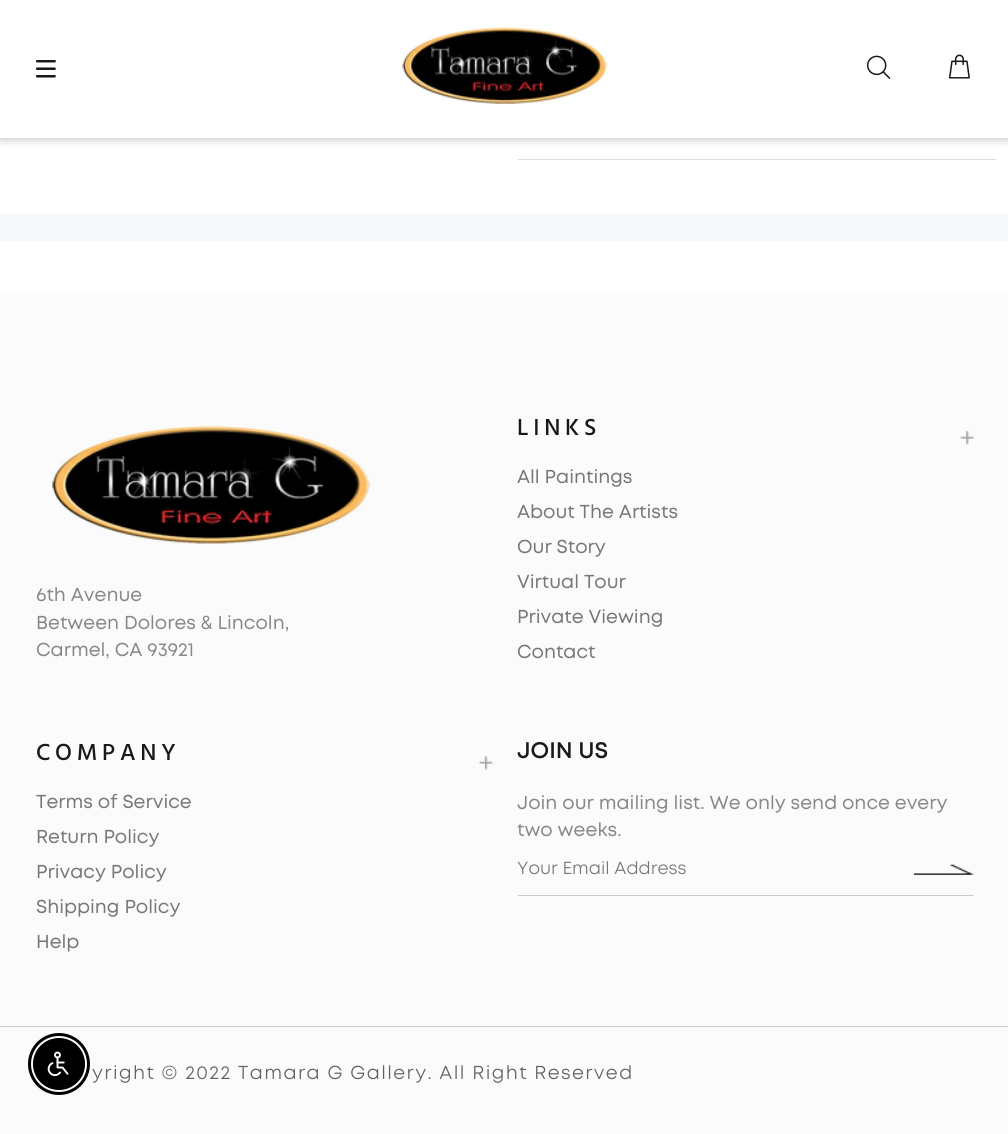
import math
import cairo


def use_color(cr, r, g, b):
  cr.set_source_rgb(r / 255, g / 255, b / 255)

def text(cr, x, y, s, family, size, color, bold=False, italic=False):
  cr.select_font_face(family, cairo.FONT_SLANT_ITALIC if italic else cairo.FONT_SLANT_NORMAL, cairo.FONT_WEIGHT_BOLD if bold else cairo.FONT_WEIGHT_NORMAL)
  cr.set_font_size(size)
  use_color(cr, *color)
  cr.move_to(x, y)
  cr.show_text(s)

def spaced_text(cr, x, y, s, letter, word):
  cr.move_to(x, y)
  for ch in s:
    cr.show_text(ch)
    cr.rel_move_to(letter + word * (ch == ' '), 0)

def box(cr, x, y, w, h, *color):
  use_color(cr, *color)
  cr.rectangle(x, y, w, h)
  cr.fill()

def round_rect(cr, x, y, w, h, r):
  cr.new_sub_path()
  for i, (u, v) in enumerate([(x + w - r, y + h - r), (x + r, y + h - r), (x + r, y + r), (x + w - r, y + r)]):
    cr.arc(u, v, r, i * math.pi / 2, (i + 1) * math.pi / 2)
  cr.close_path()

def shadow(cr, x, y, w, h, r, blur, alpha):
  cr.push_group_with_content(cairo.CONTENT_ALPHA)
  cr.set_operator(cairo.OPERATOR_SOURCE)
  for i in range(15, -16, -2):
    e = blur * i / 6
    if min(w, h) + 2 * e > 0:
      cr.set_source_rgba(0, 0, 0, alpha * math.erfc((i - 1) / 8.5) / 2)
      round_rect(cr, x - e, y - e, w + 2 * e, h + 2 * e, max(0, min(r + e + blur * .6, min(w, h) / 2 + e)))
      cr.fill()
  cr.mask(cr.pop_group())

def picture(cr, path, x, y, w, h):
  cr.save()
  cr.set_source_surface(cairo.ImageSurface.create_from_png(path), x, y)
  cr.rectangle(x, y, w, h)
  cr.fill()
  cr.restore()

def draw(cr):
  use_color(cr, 255, 255, 255)
  cr.paint()
  use_color(cr, 0, 0, 0)
  shadow(cr, 0, 0, 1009, 138, 0, 5, 0.3)
  box(cr, 0, 0, 1008, 138, 255, 255, 255)
  picture(cr, "img_01.png", 35, 60, 21, 18)
  picture(cr, "img_02.png", 402, 27, 206, 77)
  picture(cr, "img_03.png", 866, 55, 25, 24)
  picture(cr, "img_04.png", 948, 54, 22, 25)
  box(cr, 518, 159, 478, 1, 221, 221, 221)
  box(cr, 0, 214, 1008, 27, 247, 248, 250)
  box(cr, 0, 295, 1008, 839, 251, 251, 251)
  picture(cr, "img_05.png", 52, 425, 318, 119)
  picture(cr, "img_06.png", 960, 431, 14, 14)
  picture(cr, "img_07.png", 478, 756, 15, 14)
  box(cr, 518, 895, 456, 1, 204, 204, 204)
  picture(cr, "img_08.png", 913, 864, 61, 11)
  box(cr, 0, 1026, 1008, 1, 204, 204, 204)
  cr.arc(59, 1064, 29.5, 0, 2 * math.pi)
  use_color(cr, 0, 0, 0)
  cr.set_line_width(3)
  cr.stroke()
  cr.arc(59, 1064, 25.5, 0, 2 * math.pi)
  cr.fill_preserve()
  cr.set_line_width(1)
  cr.stroke()
  picture(cr, "img_09.png", 47, 1051, 22, 26)
  text(cr, 36, 601, "6th Avenue", "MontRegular", 18.75, (136, 136, 136))
  text(cr, 36, 629, "Between Dolores & Lincoln,", "MontRegular", 18.75, (136, 136, 136))
  text(cr, 36, 656, "Carmel, CA 93921", "MontRegular", 18.75, (136, 136, 136))
  cr.select_font_face("Hind Medium")
  cr.set_font_size(23.75)
  use_color(cr, 25, 25, 25)
  spaced_text(cr, 517, 435, "LINKS", 4.75, 0)
  text(cr, 517, 483, "All Paintings", "MontRegular", 18.75, (119, 119, 119))
  text(cr, 517, 518, "About The Artists", "MontRegular", 18.75, (119, 119, 119))
  text(cr, 517, 553, "Our Story", "MontRegular", 18.75, (119, 119, 119))
  text(cr, 517, 588, "Virtual Tour", "MontRegular", 18.75, (119, 119, 119))
  text(cr, 517, 623, "Private Viewing", "MontRegular", 18.75, (119, 119, 119))
  text(cr, 517, 658, "Contact", "MontRegular", 18.75, (119, 119, 119))
  cr.select_font_face("Hind Medium")
  cr.set_font_size(23.75)
  use_color(cr, 25, 25, 25)
  spaced_text(cr, 36, 760, "COMPANY", 4.75, 0)
  text(cr, 36, 808, "Terms of Service", "MontRegular", 18.75, (119, 119, 119))
  text(cr, 36, 843, "Return Policy", "MontRegular", 18.75, (119, 119, 119))
  text(cr, 36, 878, "Privacy Policy", "MontRegular", 18.75, (119, 119, 119))
  text(cr, 36, 913, "Shipping Policy", "MontRegular", 18.75, (119, 119, 119))
  text(cr, 36, 948, "Help", "MontRegular", 18.75, (119, 119, 119))
  text(cr, 517, 758, "JOIN US", "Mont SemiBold", 22.5, (25, 25, 25))
  text(cr, 517, 809, "Join our mailing list. We only send once every", "MontRegular", 18.75, (136, 136, 136))
  text(cr, 517, 836, "two weeks.", "MontRegular", 18.75, (136, 136, 136))
  text(cr, 517, 874, "Your Email Address", "Mont", 17.5, (119, 119, 119))
  cr.set_font_size(18.75)
  use_color(cr, 97, 97, 97)
  spaced_text(cr, 92, 1079, "yright © 2022 Tamara G Gallery. All Right Reserved", 1.4, 0)


surface = cairo.ImageSurface(cairo.FORMAT_RGB24, 1008, 1134)
cr = cairo.Context(surface)
options = cairo.FontOptions()
options.set_hint_metrics(cairo.HINT_METRICS_OFF)
options.set_hint_style(cairo.HINT_STYLE_NONE)
cr.set_font_options(options)
cr.set_miter_limit(4)
draw(cr)
surface.write_to_png("out.png")
